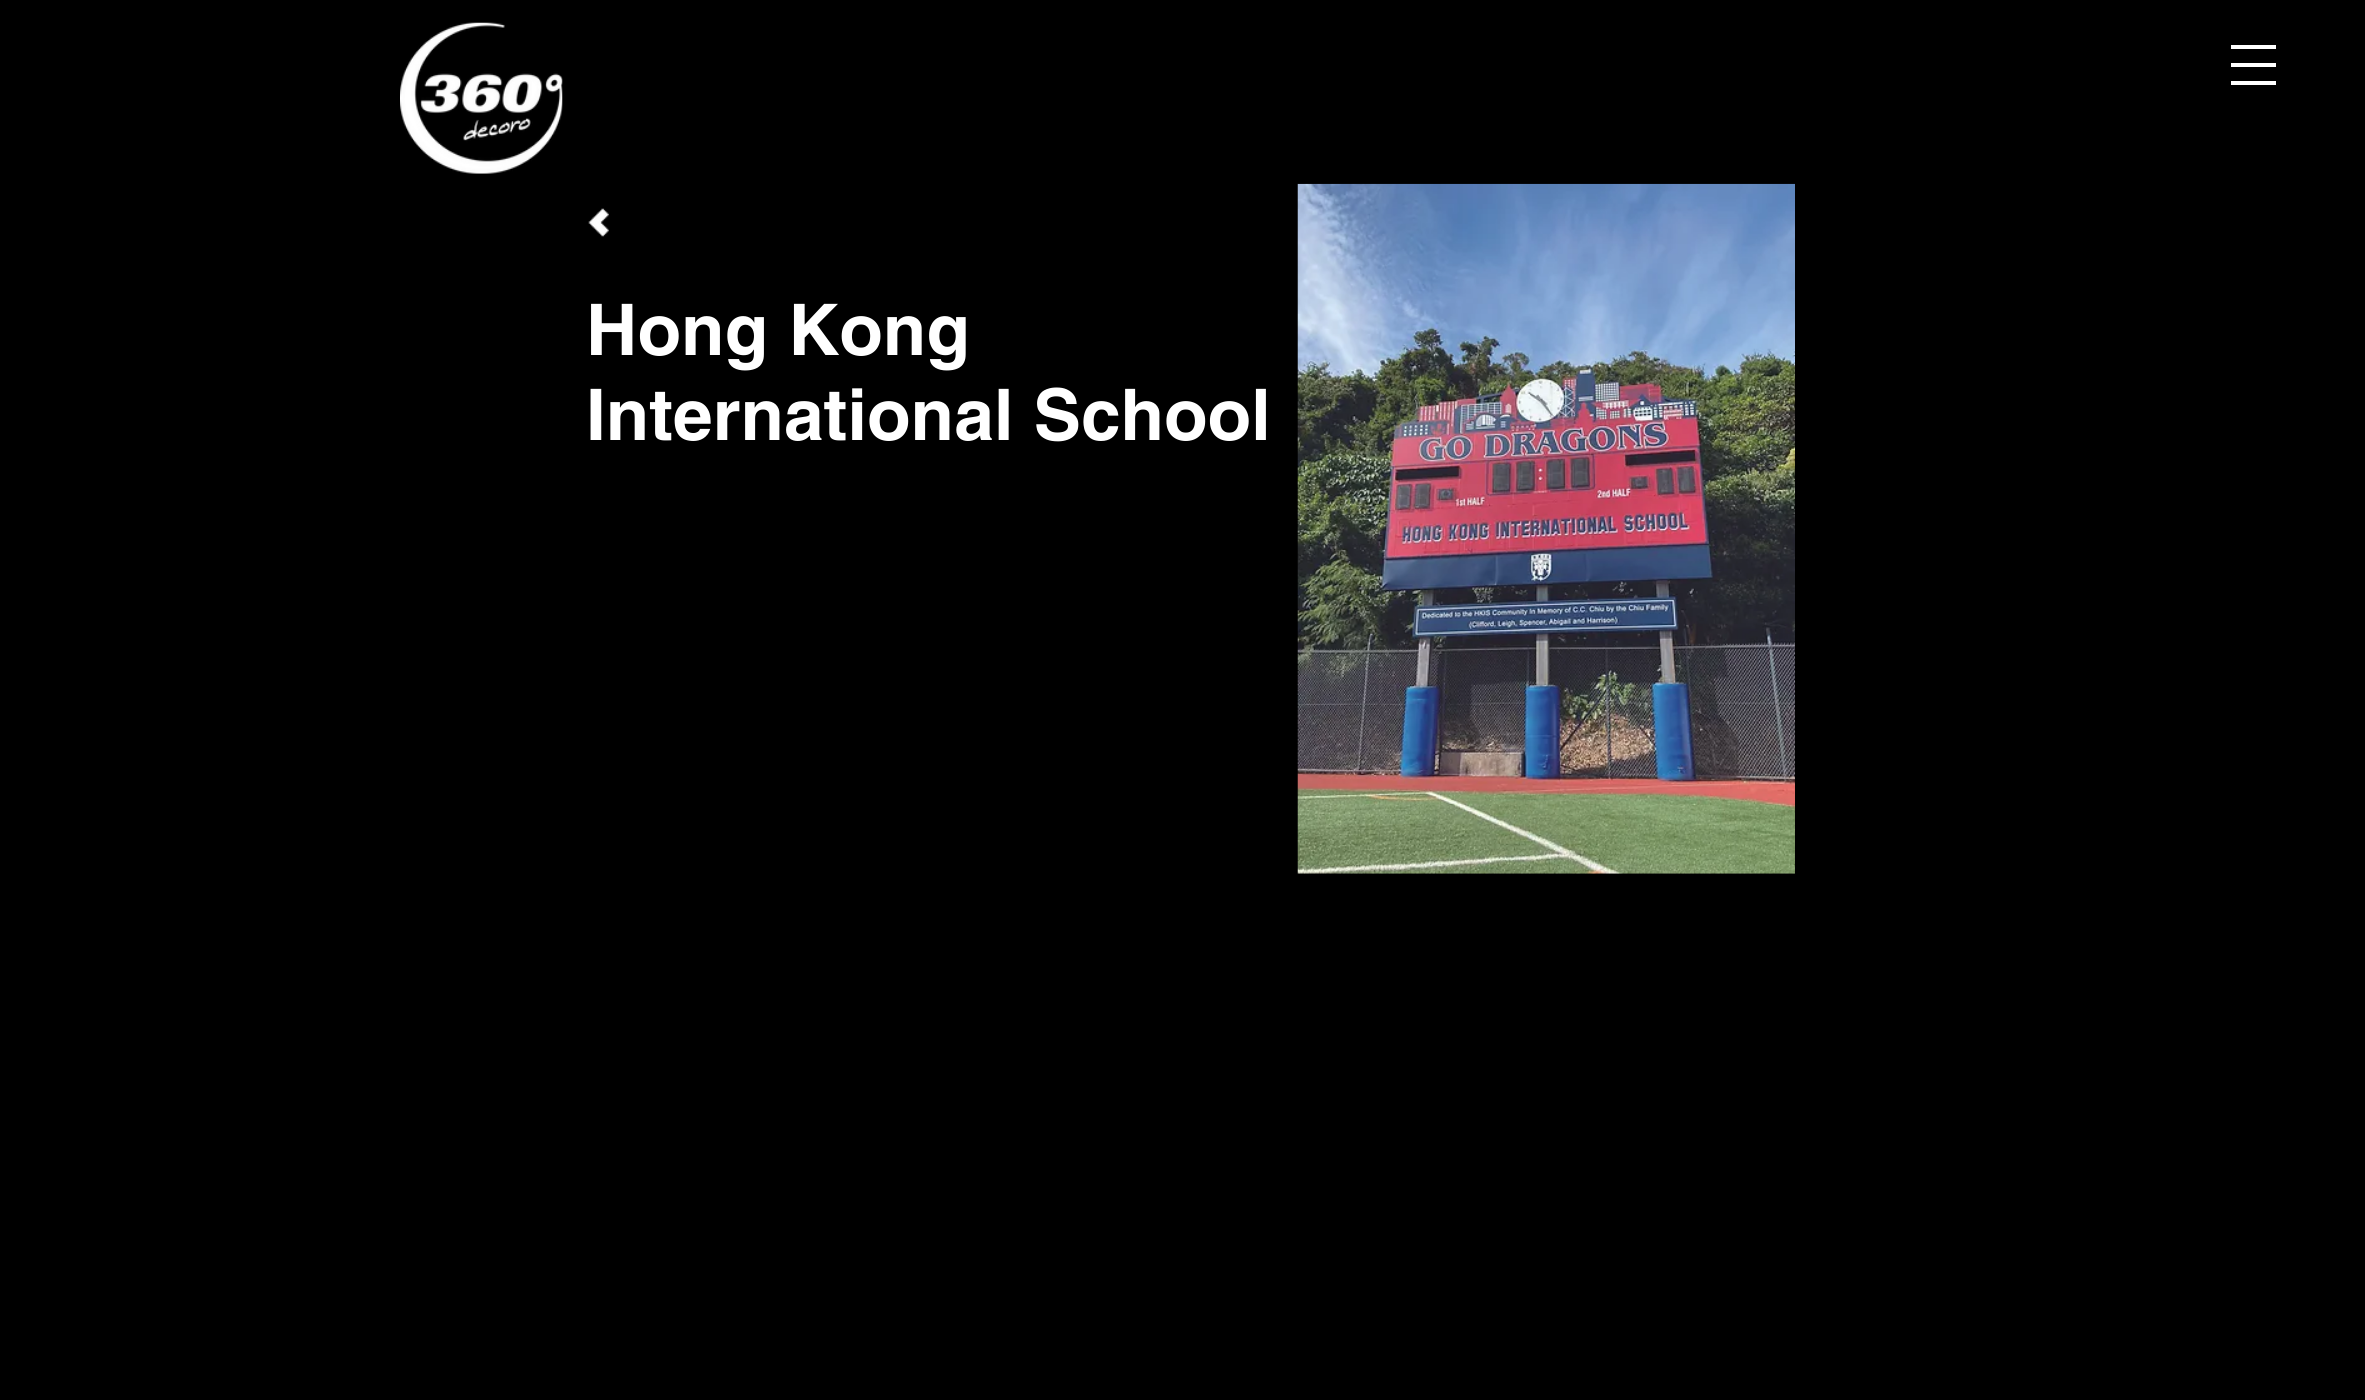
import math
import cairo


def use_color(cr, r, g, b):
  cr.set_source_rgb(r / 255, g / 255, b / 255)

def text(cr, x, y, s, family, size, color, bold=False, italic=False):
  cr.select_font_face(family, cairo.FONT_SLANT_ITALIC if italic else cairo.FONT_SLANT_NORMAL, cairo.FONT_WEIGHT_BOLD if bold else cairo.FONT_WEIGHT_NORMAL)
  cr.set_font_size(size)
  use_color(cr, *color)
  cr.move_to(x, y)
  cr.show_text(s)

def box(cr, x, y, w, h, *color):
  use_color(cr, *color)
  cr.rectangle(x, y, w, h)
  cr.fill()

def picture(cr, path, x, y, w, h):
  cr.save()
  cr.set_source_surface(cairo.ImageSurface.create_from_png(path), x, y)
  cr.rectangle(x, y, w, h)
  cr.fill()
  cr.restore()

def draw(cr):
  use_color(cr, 0, 0, 0)
  cr.paint()
  picture(cr, "img_01.png", 400, 22, 163, 152)
  box(cr, 2231, 45, 45, 4, 255, 255, 255)
  box(cr, 2231, 63, 45, 4, 255, 255, 255)
  box(cr, 2231, 81, 45, 4, 255, 255, 255)
  picture(cr, "img_02.png", 588, 208, 21, 29)
  picture(cr, "img_03.png", 1297, 183, 498, 691)
  text(cr, 586, 355, "Hong Kong", "helvetica", 71.25, (255, 255, 255), bold=True)
  text(cr, 586, 440, "International School", "helvetica", 71.25, (255, 255, 255), bold=True)


surface = cairo.ImageSurface(cairo.FORMAT_RGB24, 2365, 1400)
cr = cairo.Context(surface)
options = cairo.FontOptions()
options.set_hint_metrics(cairo.HINT_METRICS_OFF)
options.set_hint_style(cairo.HINT_STYLE_NONE)
cr.set_font_options(options)
cr.set_miter_limit(4)
draw(cr)
surface.write_to_png("out.png")
